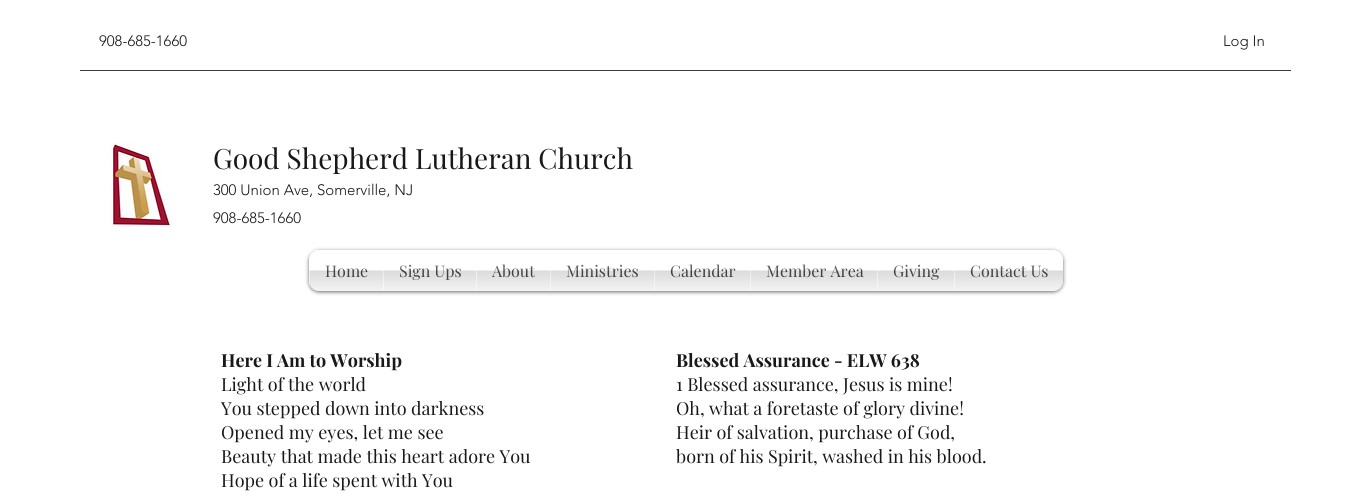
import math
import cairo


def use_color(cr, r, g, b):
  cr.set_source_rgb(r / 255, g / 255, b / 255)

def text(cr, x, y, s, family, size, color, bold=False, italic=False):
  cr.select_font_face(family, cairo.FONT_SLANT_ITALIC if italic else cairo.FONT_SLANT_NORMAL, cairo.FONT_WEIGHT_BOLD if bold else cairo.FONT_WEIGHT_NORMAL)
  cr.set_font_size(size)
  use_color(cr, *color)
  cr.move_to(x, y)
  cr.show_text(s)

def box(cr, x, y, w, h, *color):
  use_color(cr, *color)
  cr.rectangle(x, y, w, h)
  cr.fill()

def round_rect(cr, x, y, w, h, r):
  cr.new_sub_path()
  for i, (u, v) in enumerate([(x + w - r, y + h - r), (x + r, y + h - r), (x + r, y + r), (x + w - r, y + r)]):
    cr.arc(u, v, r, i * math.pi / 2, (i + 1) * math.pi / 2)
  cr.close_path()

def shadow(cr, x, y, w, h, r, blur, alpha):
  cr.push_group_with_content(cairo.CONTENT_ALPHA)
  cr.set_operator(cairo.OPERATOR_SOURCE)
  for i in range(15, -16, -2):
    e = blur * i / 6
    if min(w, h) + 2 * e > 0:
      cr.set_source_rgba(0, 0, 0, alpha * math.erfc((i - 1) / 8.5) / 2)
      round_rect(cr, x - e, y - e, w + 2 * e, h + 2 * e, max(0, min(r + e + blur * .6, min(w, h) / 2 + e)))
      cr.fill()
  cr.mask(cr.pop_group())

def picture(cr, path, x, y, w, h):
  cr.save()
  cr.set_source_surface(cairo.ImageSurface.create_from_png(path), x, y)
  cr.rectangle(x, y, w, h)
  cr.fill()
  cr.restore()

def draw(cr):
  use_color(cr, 255, 255, 255)
  cr.paint()
  box(cr, 80, 70, 1211, 1, 59, 59, 59)
  picture(cr, "img_01.png", 110, 142, 63, 85)
  cr.save()
  cr.set_fill_rule(cairo.FILL_RULE_EVEN_ODD)
  cr.new_path()
  cr.move_to(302, 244)
  cr.line_to(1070, 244)
  cr.line_to(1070, 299)
  cr.line_to(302, 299)
  cr.close_path()
  cr.move_to(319, 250)
  cr.line_to(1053, 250)
  cr.curve_to(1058.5, 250, 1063, 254.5, 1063, 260)
  cr.line_to(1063, 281)
  cr.curve_to(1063, 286.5, 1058.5, 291, 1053, 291)
  cr.line_to(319, 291)
  cr.curve_to(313.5, 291, 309, 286.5, 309, 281)
  cr.line_to(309, 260)
  cr.curve_to(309, 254.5, 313.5, 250, 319, 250)
  cr.close_path()
  cr.clip()
  use_color(cr, 0, 0, 0)
  shadow(cr, 309, 251, 754, 41, 10, 2, 0.6)
  cr.restore()
  picture(cr, "img_02.png", 309, 270, 754, 21)
  text(cr, 99, 46, "908-685-1660", "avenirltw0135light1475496 Light", 15, (24, 24, 24))
  text(cr, 1223, 46, "Log In", "avenirltw0135light1475496 Light", 15, (24, 24, 24))
  text(cr, 213, 169, "Good Shepherd Lutheran Church", "Playfair Display", 28, (24, 24, 24))
  text(cr, 213, 195, "300 Union Ave, Somerville, NJ", "avenirltw0135light1475496 Light", 15, (24, 24, 24))
  text(cr, 213, 223, "908-685-1660", "avenirltw0135light1475496 Light", 15, (24, 24, 24))
  text(cr, 325, 277, "Home", "Playfair Display", 16, (68, 68, 68))
  picture(cr, "img_03.png", 310, 250, 73, 41)
  text(cr, 399, 277, "Sign Ups", "Playfair Display", 16, (68, 68, 68))
  picture(cr, "img_04.png", 384, 264, 92, 27)
  text(cr, 492, 277, "About", "Playfair Display", 16, (68, 68, 68))
  picture(cr, "img_05.png", 477, 264, 73, 27)
  text(cr, 566, 277, "Ministries", "Playfair Display", 16, (68, 68, 68))
  picture(cr, "img_06.png", 551, 264, 103, 27)
  text(cr, 670, 277, "Calendar", "Playfair Display", 16, (68, 68, 68))
  picture(cr, "img_07.png", 655, 264, 95, 27)
  text(cr, 766, 277, "Member Area", "Playfair Display", 16, (68, 68, 68))
  picture(cr, "img_08.png", 751, 264, 126, 27)
  text(cr, 893, 277, "Giving", "Playfair Display", 16, (68, 68, 68))
  picture(cr, "img_09.png", 878, 264, 76, 27)
  text(cr, 970, 277, "Contact Us", "Playfair Display", 16, (68, 68, 68))
  picture(cr, "img_10.png", 955, 265, 108, 26)
  text(cr, 221, 367, "Here I Am to Worship", "Playfair Display", 18, (24, 24, 24), bold=True)
  text(cr, 221, 391, "Light of the world", "Playfair Display", 18, (24, 24, 24))
  text(cr, 221, 415, "You stepped down into darkness", "Playfair Display", 18, (24, 24, 24))
  text(cr, 221, 439, "Opened my eyes, let me see", "Playfair Display", 18, (24, 24, 24))
  text(cr, 221, 463, "Beauty that made this heart adore You", "Playfair Display", 18, (24, 24, 24))
  text(cr, 221, 487, "Hope of a life spent with You", "Playfair Display", 18, (24, 24, 24))
  text(cr, 676, 367, "Blessed Assurance - ELW 638", "Playfair Display", 18, (24, 24, 24), bold=True)
  text(cr, 676, 391, "1 Blessed assurance, Jesus is mine!", "Playfair Display", 18, (24, 24, 24))
  text(cr, 676, 415, "Oh, what a foretaste of glory divine!", "Playfair Display", 18, (24, 24, 24))
  text(cr, 676, 439, "Heir of salvation, purchase of God,", "Playfair Display", 18, (24, 24, 24))
  text(cr, 676, 463, "born of his Spirit, washed in his blood.", "Playfair Display", 18, (24, 24, 24))


surface = cairo.ImageSurface(cairo.FORMAT_RGB24, 1371, 504)
cr = cairo.Context(surface)
options = cairo.FontOptions()
options.set_hint_metrics(cairo.HINT_METRICS_OFF)
options.set_hint_style(cairo.HINT_STYLE_NONE)
cr.set_font_options(options)
cr.set_miter_limit(4)
draw(cr)
surface.write_to_png("out.png")
